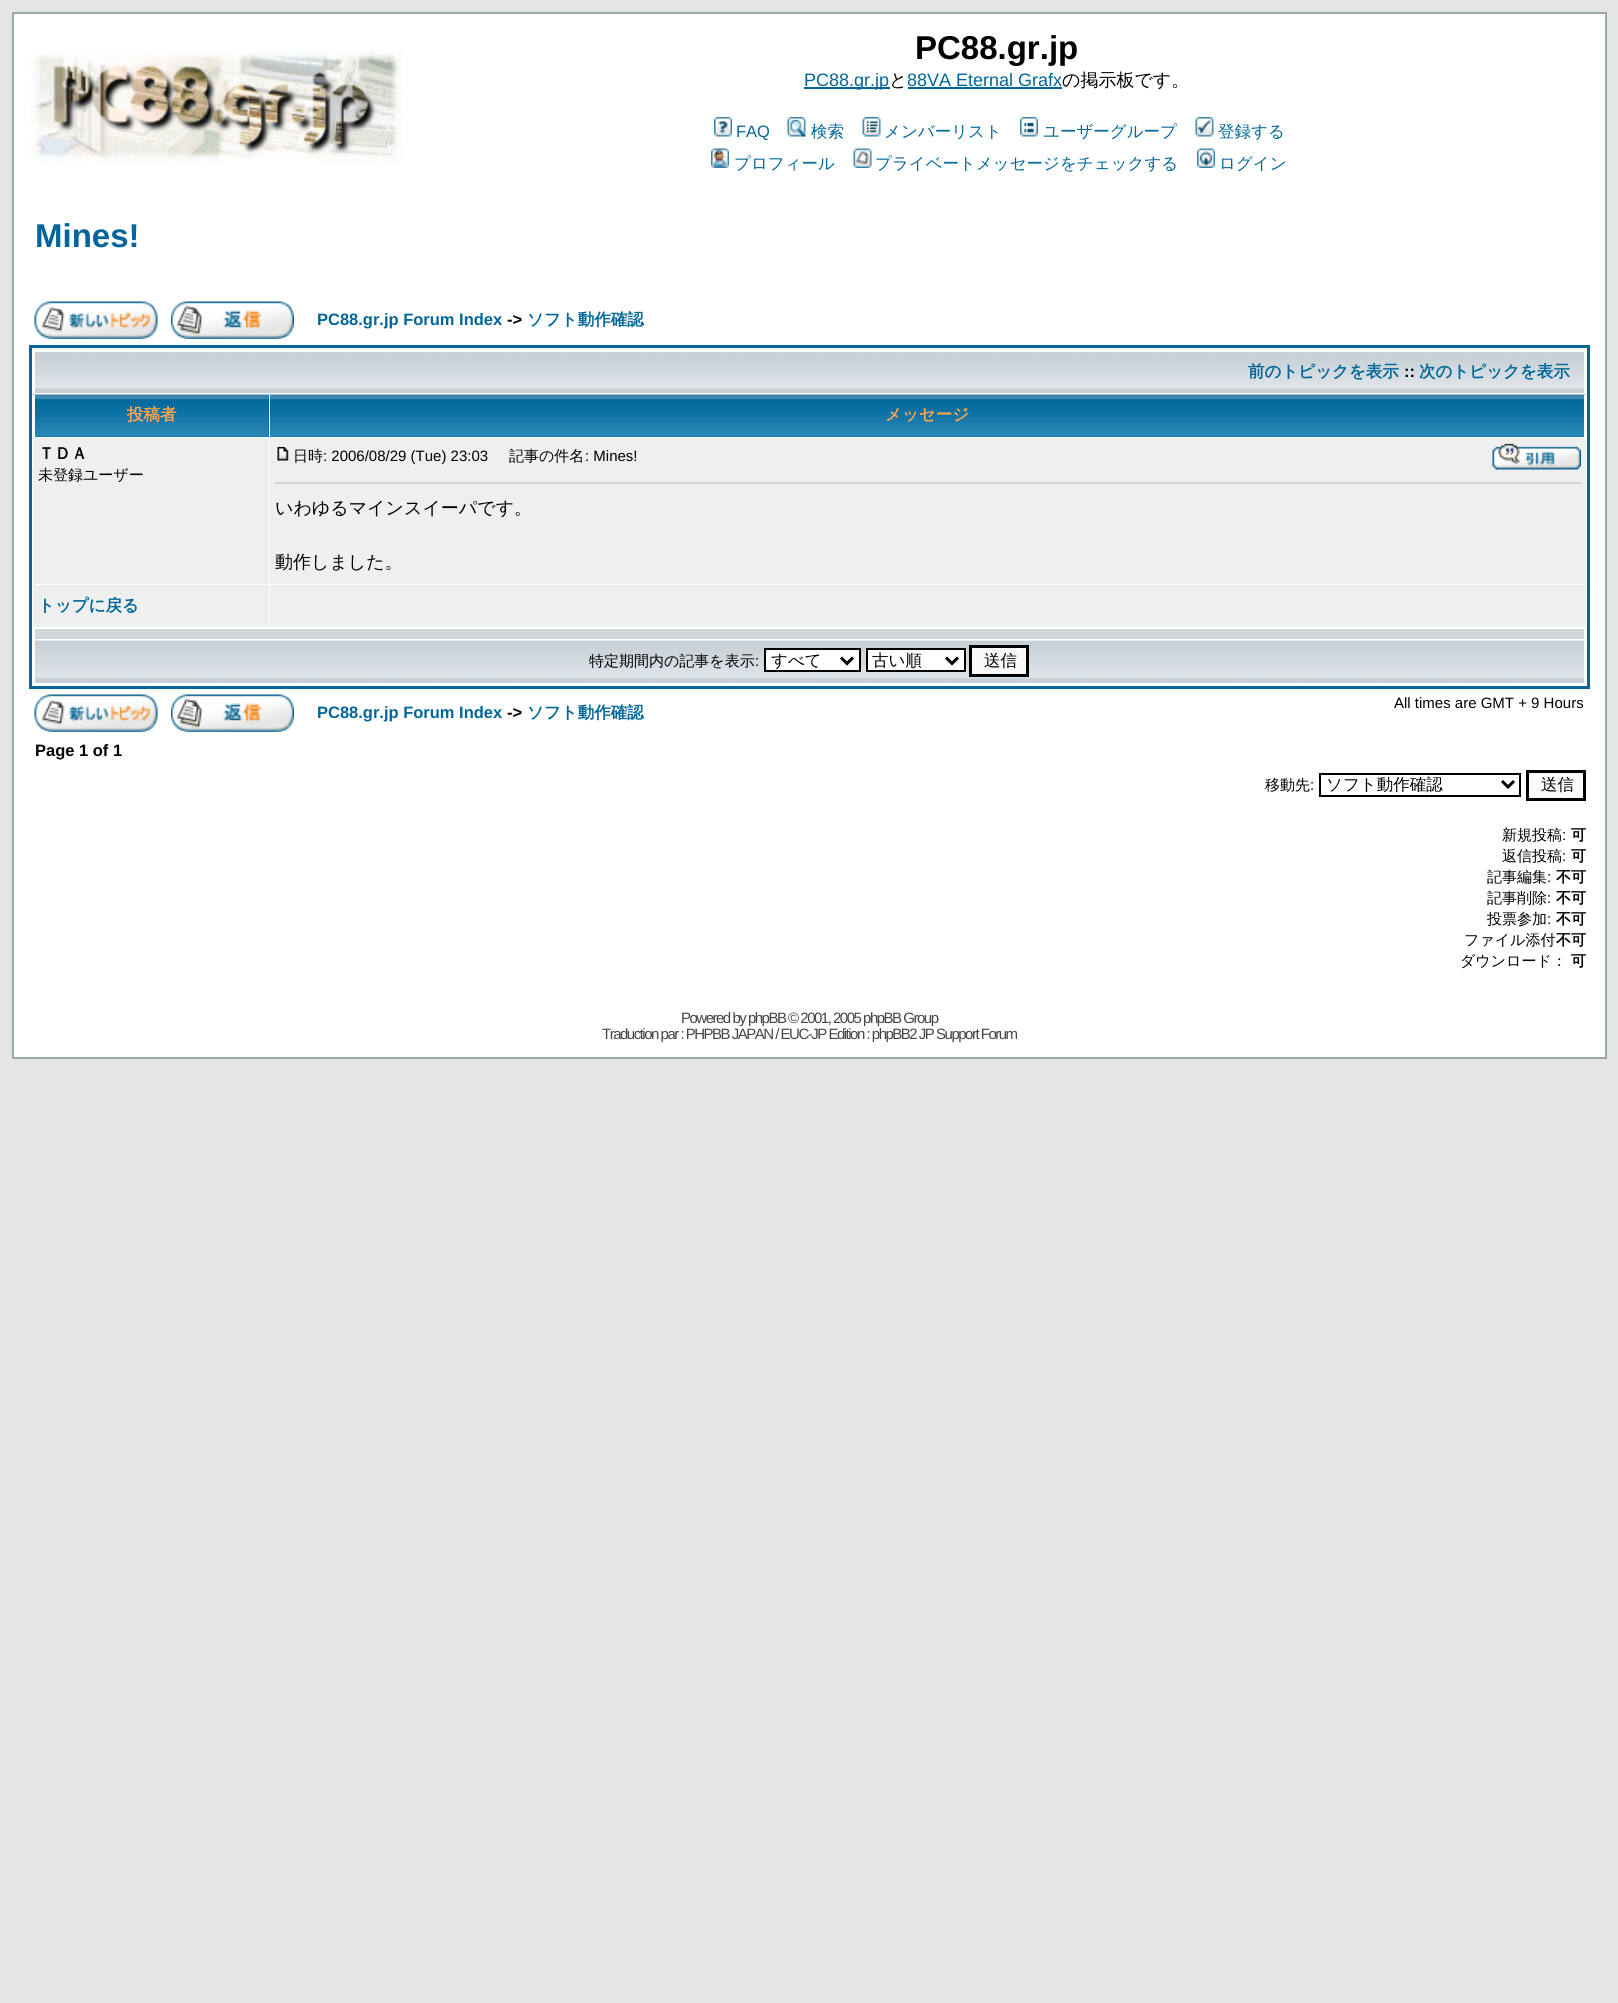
import math
import cairo


def use_color(cr, r, g, b):
  cr.set_source_rgb(r / 255, g / 255, b / 255)

def text(cr, x, y, s, family, size, color, bold=False, italic=False):
  cr.select_font_face(family, cairo.FONT_SLANT_ITALIC if italic else cairo.FONT_SLANT_NORMAL, cairo.FONT_WEIGHT_BOLD if bold else cairo.FONT_WEIGHT_NORMAL)
  cr.set_font_size(size)
  use_color(cr, *color)
  cr.move_to(x, y)
  cr.show_text(s)

def spaced_text(cr, x, y, s, letter, word):
  cr.move_to(x, y)
  for ch in s:
    cr.show_text(ch)
    cr.rel_move_to(letter + word * (ch == ' '), 0)

def box(cr, x, y, w, h, *color):
  use_color(cr, *color)
  cr.rectangle(x, y, w, h)
  cr.fill()

def picture(cr, path, x, y, w, h):
  cr.save()
  cr.set_source_surface(cairo.ImageSurface.create_from_png(path), x, y)
  cr.rectangle(x, y, w, h)
  cr.fill()
  cr.restore()

def draw(cr):
  use_color(cr, 229, 229, 229)
  cr.paint()
  use_color(cr, 255, 255, 255)
  cr.rectangle(13, 13, 1593, 1045)
  cr.fill_preserve()
  use_color(cr, 152, 170, 177)
  cr.stroke()
  picture(cr, "img_01.png", 30, 51, 373, 111)
  box(cr, 804, 87, 86, 2, 0, 102, 153)
  box(cr, 908, 87, 154, 2, 0, 102, 153)
  picture(cr, "img_02.png", 714, 117, 18, 20)
  picture(cr, "img_03.png", 787, 117, 19, 20)
  picture(cr, "img_04.png", 862, 117, 19, 20)
  picture(cr, "img_05.png", 1020, 117, 18, 20)
  picture(cr, "img_06.png", 1195, 117, 19, 20)
  picture(cr, "img_07.png", 711, 148, 18, 20)
  picture(cr, "img_08.png", 853, 148, 19, 20)
  picture(cr, "img_09.png", 1197, 148, 18, 20)
  picture(cr, "img_10.png", 34, 301, 124, 38)
  picture(cr, "img_11.png", 171, 301, 123, 38)
  cr.rectangle(30.5, 346.5, 1558, 341)
  cr.set_line_width(3)
  cr.stroke()
  picture(cr, "img_12.png", 33, 349, 1553, 44)
  box(cr, 33, 350, 1553, 2, 255, 255, 255)
  box(cr, 1584, 350, 2, 43, 255, 255, 255)
  box(cr, 33, 350, 2, 43, 255, 255, 255)
  box(cr, 35, 395, 234, 42, 0, 102, 153)
  picture(cr, "img_13.png", 33, 394, 236, 43)
  box(cr, 33, 395, 2, 42, 255, 255, 255)
  box(cr, 270, 436, 1314, 1, 0, 102, 153)
  picture(cr, "img_14.png", 270, 394, 1316, 43)
  box(cr, 1584, 395, 2, 42, 255, 255, 255)
  box(cr, 33, 438, 236, 146, 239, 239, 239)
  box(cr, 270, 438, 1316, 146, 239, 239, 239)
  picture(cr, "img_15.png", 277, 447, 12, 14)
  picture(cr, "img_16.png", 1492, 443, 89, 27)
  box(cr, 275, 482, 1306, 2, 209, 215, 220)
  box(cr, 33, 585, 236, 42, 239, 239, 239)
  box(cr, 270, 585, 1316, 42, 239, 239, 239)
  box(cr, 35, 629, 1549, 10, 209, 215, 220)
  picture(cr, "img_17.png", 33, 640, 1553, 43)
  box(cr, 1584, 641, 2, 43, 255, 255, 255)
  box(cr, 33, 641, 2, 43, 255, 255, 255)
  cr.rectangle(765, 649, 95, 22)
  cr.fill_preserve()
  use_color(cr, 0, 0, 0)
  cr.set_line_width(2)
  cr.stroke()
  cr.new_path()
  cr.move_to(841, 657.5)
  cr.line_to(847, 663.5)
  cr.line_to(853, 657.5)
  cr.set_line_width(3)
  cr.stroke()
  use_color(cr, 255, 255, 255)
  cr.rectangle(867, 649, 98, 22)
  cr.fill_preserve()
  use_color(cr, 0, 0, 0)
  cr.set_line_width(2)
  cr.stroke()
  cr.new_path()
  cr.move_to(946, 657.5)
  cr.line_to(952, 663.5)
  cr.line_to(958, 657.5)
  cr.set_line_width(3)
  cr.stroke()
  use_color(cr, 250, 250, 250)
  cr.rectangle(970.5, 646.5, 57, 29)
  cr.fill_preserve()
  use_color(cr, 0, 0, 0)
  cr.stroke()
  picture(cr, "img_10.png", 34, 694, 124, 38)
  picture(cr, "img_11.png", 171, 694, 123, 38)
  cr.rectangle(1320, 774, 200, 22)
  cr.set_line_width(2)
  cr.stroke()
  cr.new_path()
  cr.move_to(1502, 781)
  cr.line_to(1508, 787)
  cr.line_to(1514, 781)
  cr.set_line_width(3)
  cr.stroke()
  use_color(cr, 250, 250, 250)
  cr.rectangle(1527.5, 771.5, 57, 28)
  cr.fill_preserve()
  use_color(cr, 0, 0, 0)
  cr.stroke()
  text(cr, 915, 59, "PC88.gr.jp", "Liberation Sans", 33, (0, 0, 0), bold=True)
  text(cr, 804, 86, "PC88.gr.jp", "Liberation Sans", 18, (0, 102, 153))
  text(cr, 889, 86, "と", "WenQuanYi Zen Hei Medium", 18, (0, 0, 0))
  text(cr, 907, 86, "88VA Eternal Grafx", "Liberation Sans", 18, (0, 102, 153))
  text(cr, 1062, 86, "の掲示板です。", "WenQuanYi Zen Hei Medium", 18, (0, 0, 0))
  text(cr, 736, 137, "FAQ", "Liberation Sans", 16.5, (0, 102, 153))
  text(cr, 811, 137, "検索", "WenQuanYi Zen Hei Medium", 16.5, (0, 102, 153))
  text(cr, 884, 137, "メンバーリスト", "WenQuanYi Zen Hei Medium", 16.5, (0, 102, 153))
  text(cr, 1043, 137, "ユーザーグループ", "WenQuanYi Zen Hei Medium", 16.5, (0, 102, 153))
  text(cr, 1218, 137, "登録する", "WenQuanYi Zen Hei Medium", 16.5, (0, 102, 153))
  text(cr, 734, 169, "プロフィール", "WenQuanYi Zen Hei Medium", 16.5, (0, 102, 153))
  text(cr, 875, 169, "プライベートメッセージをチェックする", "WenQuanYi Zen Hei Medium", 16.5, (0, 102, 153))
  text(cr, 1219, 169, "ログイン", "WenQuanYi Zen Hei Medium", 16.5, (0, 102, 153))
  text(cr, 35, 247, "Mines!", "Liberation Sans", 33, (0, 102, 153), bold=True)
  text(cr, 317, 325, "PC88.gr.jp Forum Index", "Liberation Sans", 16.5, (0, 102, 153), bold=True)
  text(cr, 507, 325, "->", "Liberation Sans", 16.5, (0, 0, 0), bold=True)
  text(cr, 527, 325, "ソフト動作確認", "WenQuanYi Zen Hei", 16.5, (0, 102, 153), bold=True)
  text(cr, 1248, 377, "前のトピックを表示", "WenQuanYi Zen Hei", 16.5, (0, 102, 153), bold=True)
  text(cr, 1404, 377, "::", "Liberation Sans", 16.5, (0, 0, 0), bold=True)
  text(cr, 1419, 377, "次のトピックを表示", "WenQuanYi Zen Hei", 16.5, (0, 102, 153), bold=True)
  text(cr, 127, 420, "投稿者", "WenQuanYi Zen Hei", 16.5, (255, 163, 79), bold=True)
  text(cr, 885, 420, "メッセージ", "WenQuanYi Zen Hei", 16.5, (255, 163, 79), bold=True)
  text(cr, 38, 459, "ＴＤＡ", "WenQuanYi Zen Hei", 16.5, (0, 0, 0), bold=True)
  text(cr, 38, 480, "未登録ユーザー", "WenQuanYi Zen Hei Medium", 15, (0, 0, 0))
  text(cr, 293, 461, "日時", "WenQuanYi Zen Hei Medium", 15, (0, 0, 0))
  text(cr, 323, 461, ": 2006/08/29 (Tue) 23:03", "Liberation Sans", 15, (0, 0, 0))
  text(cr, 509, 461, "記事の件名", "WenQuanYi Zen Hei Medium", 15, (0, 0, 0))
  text(cr, 585, 461, ": Mines!", "Liberation Sans", 15, (0, 0, 0))
  text(cr, 275, 514, "いわゆるマインスイーパです。", "WenQuanYi Zen Hei Medium", 18, (0, 0, 0))
  text(cr, 275, 568, "動作しました。", "WenQuanYi Zen Hei Medium", 18, (0, 0, 0))
  text(cr, 38, 611, "トップに戻る", "WenQuanYi Zen Hei", 16.5, (0, 102, 153), bold=True)
  text(cr, 589, 666, "特定期間内の記事を表示", "WenQuanYi Zen Hei Medium", 15, (0, 0, 0))
  text(cr, 755, 666, ":", "Liberation Sans", 15, (0, 0, 0))
  text(cr, 771, 666, "すべて", "WenQuanYi Zen Hei Medium", 16.5, (0, 0, 0))
  text(cr, 872, 666, "古い順", "WenQuanYi Zen Hei Medium", 16.5, (0, 0, 0))
  text(cr, 984, 666, "送信", "WenQuanYi Zen Hei Medium", 16.5, (0, 0, 0))
  text(cr, 317, 718, "PC88.gr.jp Forum Index", "Liberation Sans", 16.5, (0, 102, 153), bold=True)
  text(cr, 507, 718, "->", "Liberation Sans", 16.5, (0, 0, 0), bold=True)
  text(cr, 527, 718, "ソフト動作確認", "WenQuanYi Zen Hei", 16.5, (0, 102, 153), bold=True)
  text(cr, 1394, 708, "All times are GMT + 9 Hours", "Liberation Sans", 15, (0, 0, 0))
  text(cr, 35, 756, "Page 1 of 1", "Liberation Sans", 16.5, (0, 0, 0), bold=True)
  text(cr, 1265, 790, "移動先", "WenQuanYi Zen Hei Medium", 15, (0, 0, 0))
  text(cr, 1310, 790, ":", "Liberation Sans", 15, (0, 0, 0))
  text(cr, 1326, 790, "ソフト動作確認", "WenQuanYi Zen Hei Medium", 16.5, (0, 0, 0))
  text(cr, 1541, 790, "送信", "WenQuanYi Zen Hei Medium", 16.5, (0, 0, 0))
  text(cr, 1502, 840, "新規投稿", "WenQuanYi Zen Hei Medium", 15, (0, 0, 0))
  text(cr, 1562, 840, ":", "Liberation Sans", 15, (0, 0, 0))
  text(cr, 1571, 840, "可", "WenQuanYi Zen Hei", 15, (0, 0, 0), bold=True)
  text(cr, 1502, 861, "返信投稿", "WenQuanYi Zen Hei Medium", 15, (0, 0, 0))
  text(cr, 1562, 861, ":", "Liberation Sans", 15, (0, 0, 0))
  text(cr, 1571, 861, "可", "WenQuanYi Zen Hei", 15, (0, 0, 0), bold=True)
  text(cr, 1487, 882, "記事編集", "WenQuanYi Zen Hei Medium", 15, (0, 0, 0))
  text(cr, 1547, 882, ":", "Liberation Sans", 15, (0, 0, 0))
  text(cr, 1556, 882, "不可", "WenQuanYi Zen Hei", 15, (0, 0, 0), bold=True)
  text(cr, 1487, 903, "記事削除", "WenQuanYi Zen Hei Medium", 15, (0, 0, 0))
  text(cr, 1547, 903, ":", "Liberation Sans", 15, (0, 0, 0))
  text(cr, 1556, 903, "不可", "WenQuanYi Zen Hei", 15, (0, 0, 0), bold=True)
  text(cr, 1487, 924, "投票参加", "WenQuanYi Zen Hei Medium", 15, (0, 0, 0))
  text(cr, 1547, 924, ":", "Liberation Sans", 15, (0, 0, 0))
  text(cr, 1556, 924, "不可", "WenQuanYi Zen Hei", 15, (0, 0, 0), bold=True)
  text(cr, 1464, 945, "ファイル添付", "WenQuanYi Zen Hei Medium", 15, (0, 0, 0))
  text(cr, 1556, 945, "不可", "WenQuanYi Zen Hei", 15, (0, 0, 0), bold=True)
  text(cr, 1460, 966, "ダウンロード：", "WenQuanYi Zen Hei Medium", 15, (0, 0, 0))
  text(cr, 1571, 966, "可", "WenQuanYi Zen Hei", 15, (0, 0, 0), bold=True)
  cr.select_font_face("Liberation Sans")
  use_color(cr, 68, 68, 68)
  spaced_text(cr, 681, 1023, "Powered by phpBB © 2001, 2005 phpBB Group", -1.5, 0)
  spaced_text(cr, 602, 1039, "Traduction par : PHPBB JAPAN / EUC-JP Edition : phpBB2 JP Support Forum", -1.5, 0)


surface = cairo.ImageSurface(cairo.FORMAT_RGB24, 1618, 2003)
cr = cairo.Context(surface)
options = cairo.FontOptions()
options.set_hint_metrics(cairo.HINT_METRICS_OFF)
options.set_hint_style(cairo.HINT_STYLE_NONE)
cr.set_font_options(options)
cr.set_miter_limit(4)
draw(cr)
surface.write_to_png("out.png")
